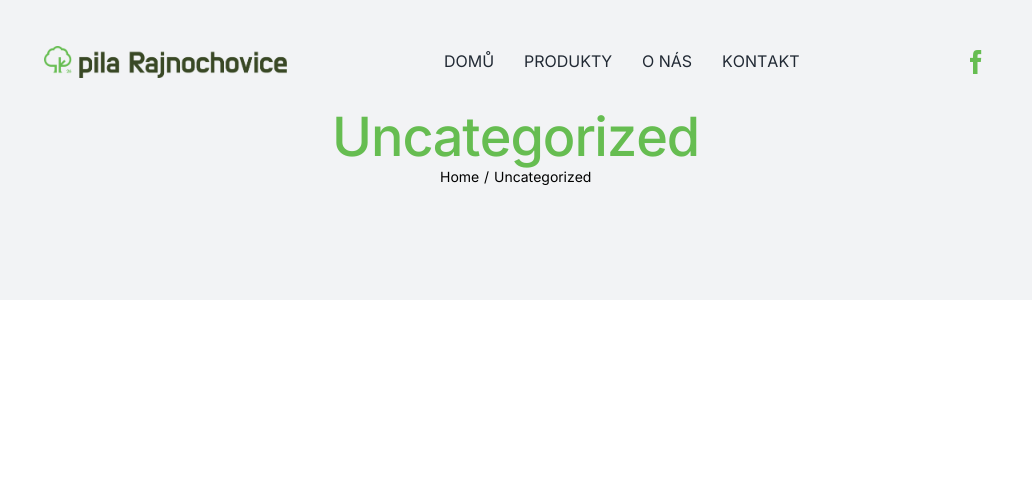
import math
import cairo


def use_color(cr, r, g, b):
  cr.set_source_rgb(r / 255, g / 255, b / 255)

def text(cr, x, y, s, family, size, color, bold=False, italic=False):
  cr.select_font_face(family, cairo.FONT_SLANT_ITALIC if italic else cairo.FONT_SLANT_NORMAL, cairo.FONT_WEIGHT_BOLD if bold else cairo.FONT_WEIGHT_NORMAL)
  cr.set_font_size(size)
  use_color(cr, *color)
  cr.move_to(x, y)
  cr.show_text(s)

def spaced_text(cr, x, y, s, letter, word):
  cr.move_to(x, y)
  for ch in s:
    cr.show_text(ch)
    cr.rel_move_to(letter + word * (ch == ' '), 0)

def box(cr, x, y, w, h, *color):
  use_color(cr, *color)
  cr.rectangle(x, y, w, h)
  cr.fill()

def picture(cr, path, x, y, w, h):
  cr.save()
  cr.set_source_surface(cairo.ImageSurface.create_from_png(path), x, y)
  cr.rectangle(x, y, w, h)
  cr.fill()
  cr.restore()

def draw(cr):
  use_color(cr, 255, 255, 255)
  cr.paint()
  box(cr, 0, 0, 1032, 300, 242, 243, 245)
  picture(cr, "img_01.png", 44, 46, 243, 32)
  picture(cr, "img_02.png", 970, 50, 12, 24)
  text(cr, 444, 67, "DOMŮ", "Inter", 16, (33, 41, 52))
  text(cr, 524, 67, "PRODUKTY", "Inter", 16, (33, 41, 52))
  text(cr, 642, 67, "O NÁS", "Inter", 16, (33, 41, 52))
  text(cr, 722, 67, "KONTAKT", "Inter", 16, (33, 41, 52))
  cr.select_font_face("Inter Medium")
  cr.set_font_size(54)
  use_color(cr, 102, 189, 81)
  spaced_text(cr, 332, 156, "Uncategorized", -1, 0)
  text(cr, 440, 182, "Home", "Inter", 14, (0, 0, 0))
  text(cr, 484, 182, "/", "Inter", 14, (0, 0, 0))
  text(cr, 494, 182, "Uncategorized", "Inter", 14, (0, 0, 0))


surface = cairo.ImageSurface(cairo.FORMAT_RGB24, 1032, 491)
cr = cairo.Context(surface)
options = cairo.FontOptions()
options.set_hint_metrics(cairo.HINT_METRICS_OFF)
options.set_hint_style(cairo.HINT_STYLE_NONE)
cr.set_font_options(options)
cr.set_miter_limit(4)
draw(cr)
surface.write_to_png("out.png")
